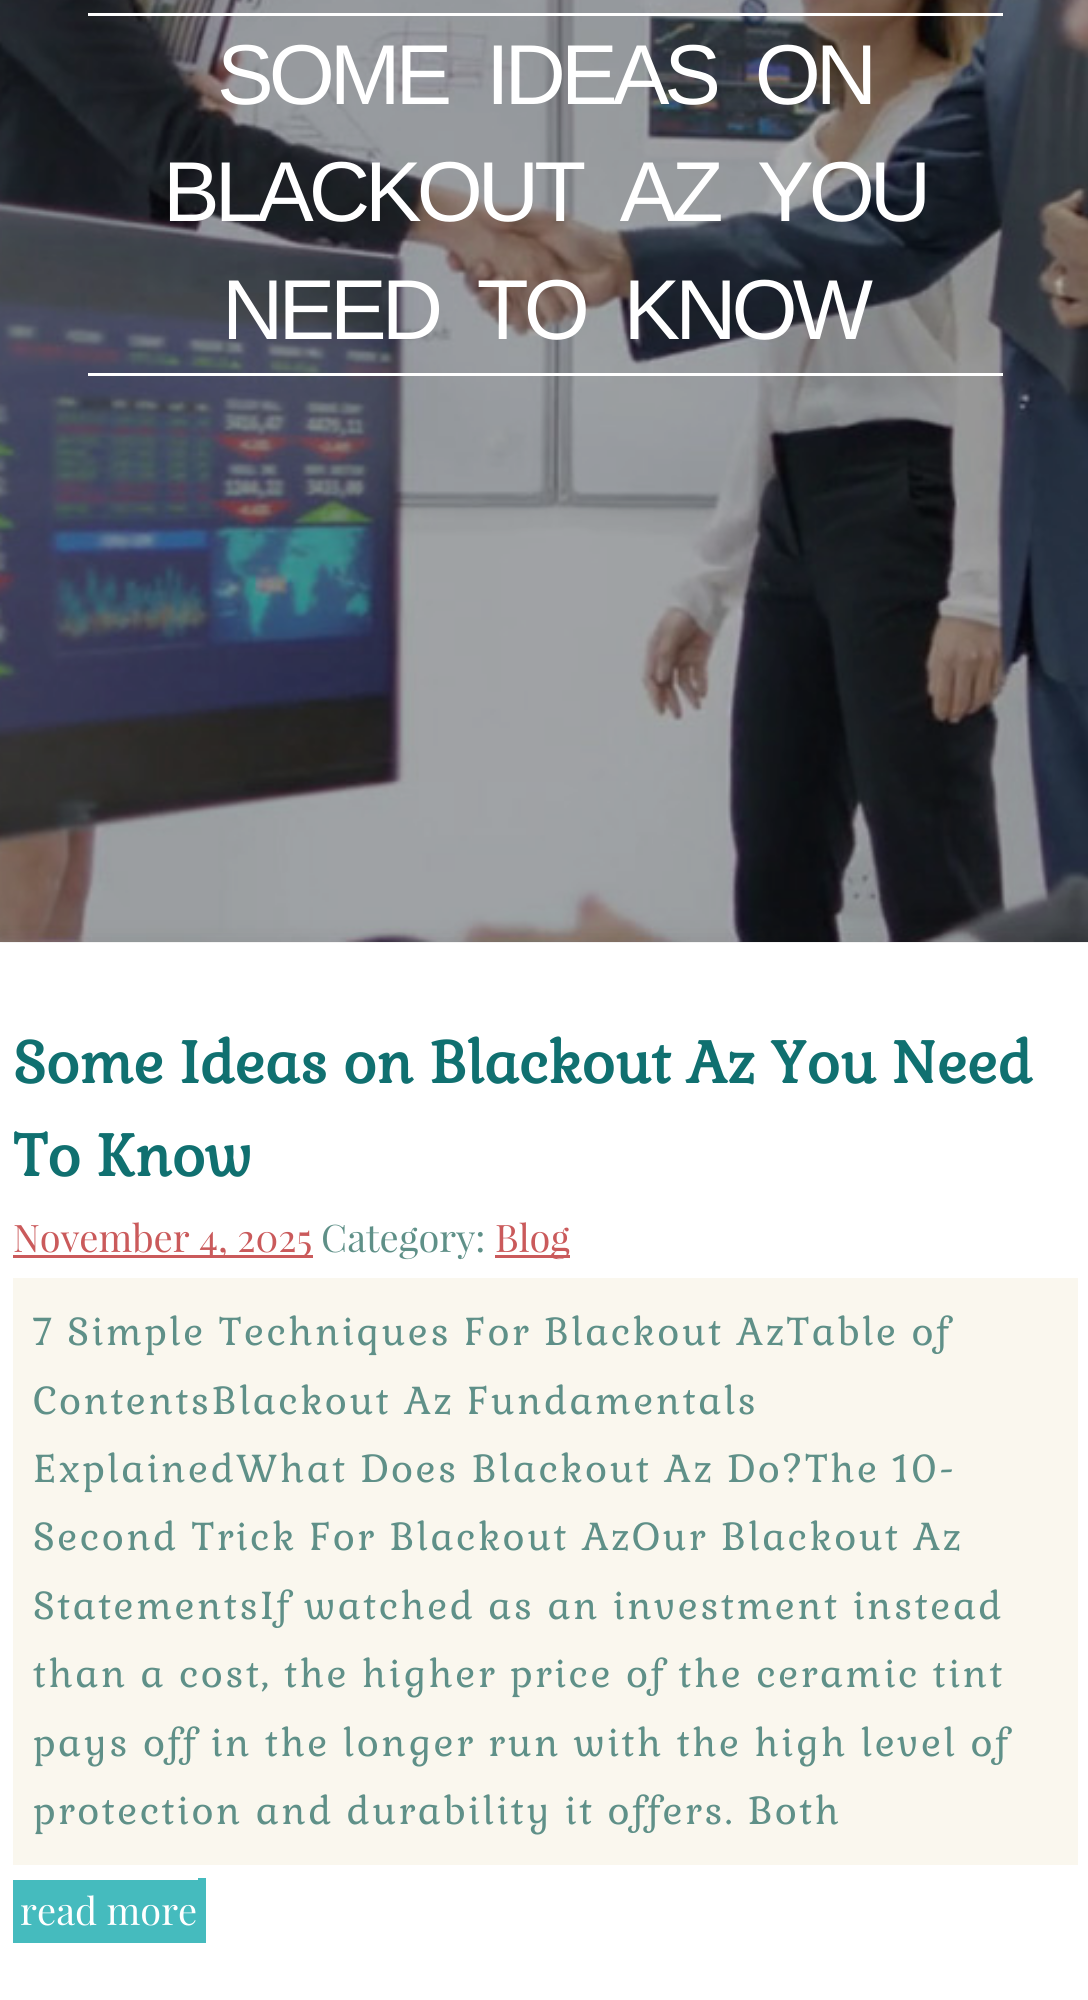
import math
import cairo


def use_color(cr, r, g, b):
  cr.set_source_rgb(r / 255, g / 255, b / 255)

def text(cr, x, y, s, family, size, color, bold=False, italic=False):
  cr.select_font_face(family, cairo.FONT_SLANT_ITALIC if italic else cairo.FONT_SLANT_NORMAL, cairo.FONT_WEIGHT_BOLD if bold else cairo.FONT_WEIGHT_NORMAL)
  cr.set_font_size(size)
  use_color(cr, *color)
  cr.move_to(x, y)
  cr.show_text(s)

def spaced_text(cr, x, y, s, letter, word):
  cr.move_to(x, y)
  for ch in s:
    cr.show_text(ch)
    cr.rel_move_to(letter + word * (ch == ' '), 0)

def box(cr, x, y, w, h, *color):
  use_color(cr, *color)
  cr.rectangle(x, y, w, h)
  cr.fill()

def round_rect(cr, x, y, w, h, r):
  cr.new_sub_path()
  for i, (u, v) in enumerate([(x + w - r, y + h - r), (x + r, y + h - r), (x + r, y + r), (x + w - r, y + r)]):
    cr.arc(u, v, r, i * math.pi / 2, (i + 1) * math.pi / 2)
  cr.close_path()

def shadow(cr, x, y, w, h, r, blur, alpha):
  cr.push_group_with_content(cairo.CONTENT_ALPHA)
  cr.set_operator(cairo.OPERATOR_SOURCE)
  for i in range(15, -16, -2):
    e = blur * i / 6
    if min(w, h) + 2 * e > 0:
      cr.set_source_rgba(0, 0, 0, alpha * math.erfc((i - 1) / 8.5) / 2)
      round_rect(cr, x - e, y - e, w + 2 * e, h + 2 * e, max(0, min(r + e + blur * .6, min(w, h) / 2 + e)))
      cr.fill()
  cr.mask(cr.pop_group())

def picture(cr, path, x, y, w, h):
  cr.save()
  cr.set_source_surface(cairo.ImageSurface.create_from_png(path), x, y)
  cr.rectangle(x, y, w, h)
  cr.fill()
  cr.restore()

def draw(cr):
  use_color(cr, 255, 255, 255)
  cr.paint()
  picture(cr, "img_01.png", 0, 0, 1088, 942)
  box(cr, 88, 13, 915, 3, 255, 255, 255)
  box(cr, 88, 373, 915, 3, 255, 255, 255)
  use_color(cr, 0, 0, 0)
  shadow(cr, 0, 943, 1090, 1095, 0, 12.5, 0.1)
  box(cr, 0, 943, 1088, 1057, 255, 255, 255)
  box(cr, 13, 1255, 300, 3, 202, 90, 91)
  box(cr, 495, 1255, 75, 3, 202, 90, 91)
  box(cr, 13, 1278, 1065, 587, 250, 247, 238)
  box(cr, 13, 1880, 185, 63, 69, 187, 190)
  box(cr, 198, 1878, 8, 65, 69, 187, 190)
  cr.select_font_face("Liberation Sans")
  cr.set_font_size(85)
  use_color(cr, 255, 255, 255)
  spaced_text(cr, 217, 104, "SOME IDEAS ON", -5, 20)
  spaced_text(cr, 163, 221, "BLACKOUT AZ YOU", -5, 20)
  spaced_text(cr, 222, 339, "NEED TO KNOW", -5, 20)
  text(cr, 13, 1083, "Some Ideas on Blackout Az You Need", "Gabriela", 57.5, (16, 112, 112), bold=True)
  text(cr, 13, 1176, "To Know", "Gabriela", 57.5, (16, 112, 112), bold=True)
  text(cr, 13, 1252, "November 4, 2025", "Playfair Display", 38, (202, 90, 91))
  text(cr, 321, 1252, "Category:", "Playfair Display", 38, (95, 144, 136))
  text(cr, 495, 1252, "Blog", "Playfair Display", 38, (202, 90, 91))
  cr.select_font_face("Gabriela")
  use_color(cr, 95, 144, 136)
  spaced_text(cr, 33, 1345, "7 Simple Techniques For Blackout AzTable of", 2.5, 0)
  spaced_text(cr, 33, 1414, "ContentsBlackout Az Fundamentals", 2.5, 0)
  spaced_text(cr, 33, 1482, "ExplainedWhat Does Blackout Az Do?The 10-", 2.5, 0)
  spaced_text(cr, 33, 1550, "Second Trick For Blackout AzOur Blackout Az", 2.5, 0)
  spaced_text(cr, 33, 1619, "StatementsIf watched as an investment instead", 2.5, 0)
  spaced_text(cr, 33, 1687, "than a cost, the higher price of the ceramic tint", 2.5, 0)
  spaced_text(cr, 33, 1756, "pays off in the longer run with the high level of", 2.5, 0)
  spaced_text(cr, 33, 1824, "protection and durability it offers. Both", 2.5, 0)
  text(cr, 20, 1925, "read more", "Playfair Display", 38, (255, 255, 255))


surface = cairo.ImageSurface(cairo.FORMAT_RGB24, 1088, 2000)
cr = cairo.Context(surface)
options = cairo.FontOptions()
options.set_hint_metrics(cairo.HINT_METRICS_OFF)
options.set_hint_style(cairo.HINT_STYLE_NONE)
cr.set_font_options(options)
cr.set_miter_limit(4)
draw(cr)
surface.write_to_png("out.png")
